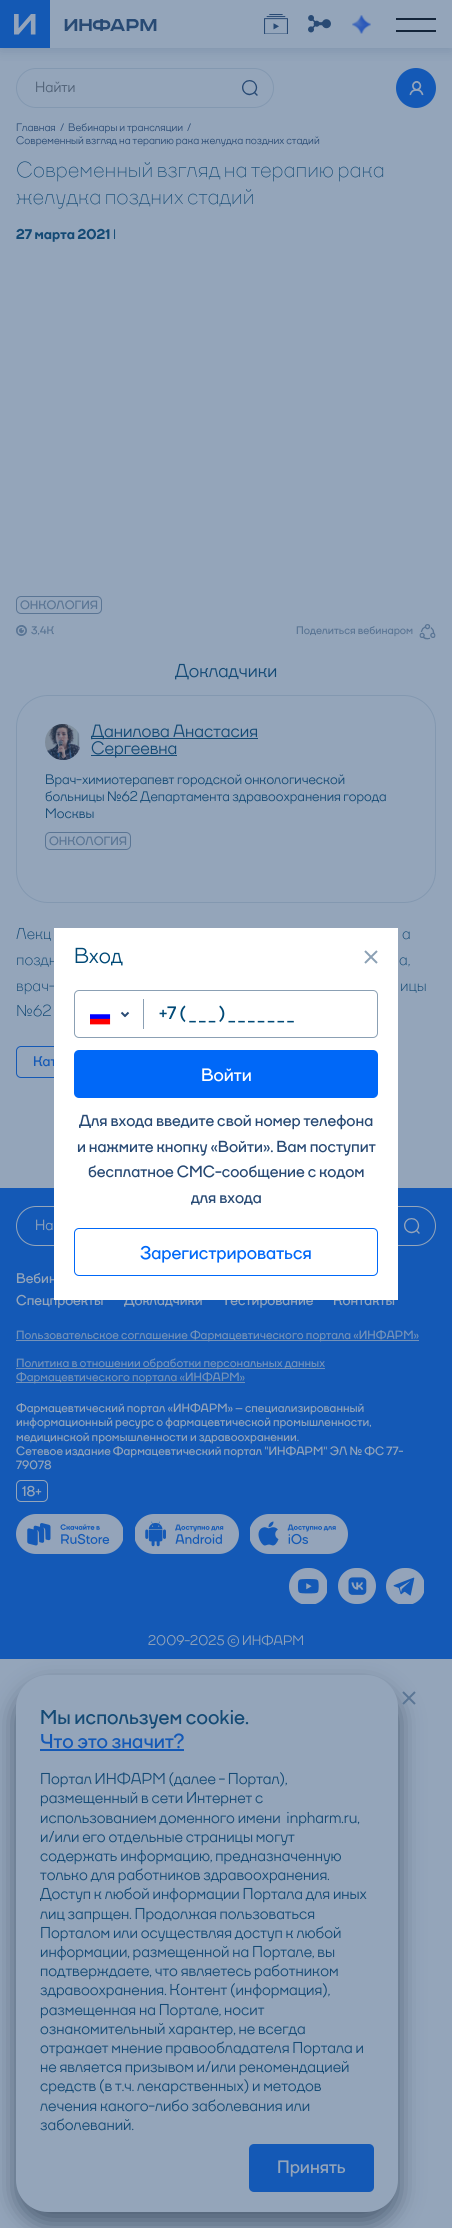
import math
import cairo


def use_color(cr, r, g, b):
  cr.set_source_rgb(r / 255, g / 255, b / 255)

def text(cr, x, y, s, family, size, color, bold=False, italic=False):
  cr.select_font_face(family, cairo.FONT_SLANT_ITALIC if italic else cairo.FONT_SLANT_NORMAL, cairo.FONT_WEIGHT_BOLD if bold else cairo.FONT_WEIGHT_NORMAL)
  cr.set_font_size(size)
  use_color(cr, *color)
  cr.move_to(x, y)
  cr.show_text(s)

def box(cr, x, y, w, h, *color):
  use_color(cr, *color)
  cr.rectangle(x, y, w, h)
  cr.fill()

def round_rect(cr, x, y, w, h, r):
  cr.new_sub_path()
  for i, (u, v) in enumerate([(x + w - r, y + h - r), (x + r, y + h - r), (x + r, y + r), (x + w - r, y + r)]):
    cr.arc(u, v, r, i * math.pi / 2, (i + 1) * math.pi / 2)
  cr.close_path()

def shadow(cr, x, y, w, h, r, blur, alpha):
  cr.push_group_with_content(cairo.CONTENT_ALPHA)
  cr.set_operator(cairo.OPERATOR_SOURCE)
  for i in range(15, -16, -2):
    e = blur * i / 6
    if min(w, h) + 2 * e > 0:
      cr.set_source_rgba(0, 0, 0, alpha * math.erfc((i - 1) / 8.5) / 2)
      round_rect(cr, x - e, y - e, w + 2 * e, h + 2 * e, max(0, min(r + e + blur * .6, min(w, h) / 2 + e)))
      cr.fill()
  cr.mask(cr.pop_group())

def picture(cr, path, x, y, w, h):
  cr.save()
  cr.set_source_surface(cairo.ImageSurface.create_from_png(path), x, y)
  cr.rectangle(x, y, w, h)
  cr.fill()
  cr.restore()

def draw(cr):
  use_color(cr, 148, 165, 186)
  cr.paint()
  round_rect(cr, 16.5, 68.5, 257, 39, 19.5)
  use_color(cr, 131, 152, 176)
  cr.set_line_width(1)
  cr.stroke()
  use_color(cr, 20, 89, 182)
  cr.arc(416, 88, 20, 0, 2 * math.pi)
  cr.fill()
  cr.save()
  cr.rectangle(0, 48, 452, 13)
  cr.clip()
  use_color(cr, 90, 117, 148)
  shadow(cr, 0, 4, 452, 48, 0, 6, 0.3)
  cr.restore()
  box(cr, 0, 0, 50, 48, 20, 89, 180)
  picture(cr, "img_01.png", 14, 14, 22, 21)
  picture(cr, "img_02.png", 64, 19, 93, 12)
  picture(cr, "img_03.png", 264, 14, 24, 20)
  picture(cr, "img_04.png", 308, 15, 23, 18)
  picture(cr, "img_05.png", 352, 15, 19, 19)
  box(cr, 396, 18, 40, 2, 20, 37, 58)
  box(cr, 396, 30, 40, 2, 20, 37, 58)
  picture(cr, "img_06.png", 242, 80, 16, 16)
  picture(cr, "img_07.png", 409, 81, 15, 15)
  round_rect(cr, 16.5, 596.5, 85, 17, 4.5)
  use_color(cr, 90, 117, 148)
  cr.stroke()
  picture(cr, "img_08.png", 16, 625, 11, 11)
  picture(cr, "img_09.png", 419, 624, 17, 16)
  round_rect(cr, 16.5, 695.5, 419, 207, 31.5)
  use_color(cr, 131, 152, 176)
  cr.stroke()
  picture(cr, "img_10.png", 45, 724, 35, 36)
  box(cr, 91, 738, 167, 1, 20, 74, 117)
  box(cr, 91, 755, 86, 1, 20, 74, 117)
  round_rect(cr, 45.5, 832.5, 85, 17, 4.5)
  use_color(cr, 90, 117, 148)
  cr.stroke()
  round_rect(cr, 16.5, 1046.5, 157, 31, 4.5)
  use_color(cr, 20, 89, 182)
  cr.stroke()
  box(cr, 0, 1188, 452, 471, 20, 89, 182)
  use_color(cr, 20, 37, 58)
  shadow(cr, 16, 1687, 382, 537, 32, 12, 0.55)
  use_color(cr, 148, 165, 186)
  round_rect(cr, 16, 1675, 382, 537, 32)
  cr.fill()
  cr.new_path()
  cr.move_to(403, 1692)
  cr.line_to(415, 1704)
  cr.move_to(403, 1704)
  cr.line_to(415, 1692)
  use_color(cr, 90, 117, 148)
  cr.set_line_width(2)
  cr.stroke()
  box(cr, 40, 1749, 144, 2, 20, 89, 182)
  round_rect(cr, 249, 2144, 125, 48, 5)
  cr.fill()
  round_rect(cr, 16.5, 1206.5, 419, 39, 19.5)
  use_color(cr, 148, 165, 186)
  cr.set_line_width(1)
  cr.stroke()
  picture(cr, "img_12.png", 404, 1218, 16, 16)
  box(cr, 16, 1340, 403, 1, 116, 146, 185)
  box(cr, 16, 1368, 309, 1, 116, 146, 185)
  box(cr, 16, 1382, 229, 1, 116, 146, 185)
  round_rect(cr, 16.5, 1480.5, 31, 21, 4.5)
  use_color(cr, 148, 165, 186)
  cr.stroke()
  picture(cr, "img_13.png", 16, 1514, 107, 40)
  picture(cr, "img_14.png", 135, 1514, 104, 40)
  picture(cr, "img_15.png", 250, 1514, 98, 40)
  picture(cr, "img_16.png", 289, 1568, 38, 36)
  picture(cr, "img_17.png", 338, 1568, 38, 36)
  picture(cr, "img_18.png", 386, 1568, 38, 36)
  text(cr, 35, 92, "Найти", "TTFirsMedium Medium", 15, (79, 96, 117))
  text(cr, 16, 131, "Главная", "TTFirsMedium Medium", 11, (40, 74, 116))
  text(cr, 60, 131, "/", "TTFirsMedium Medium", 11, (40, 74, 116))
  text(cr, 68, 131, "Вебинары и трансляции", "TTFirsMedium Medium", 11, (40, 74, 116))
  text(cr, 187, 131, "/", "TTFirsMedium Medium", 11, (40, 74, 116))
  text(cr, 16, 144, "Современный взгляд на терапию рака желудка поздних стадий", "TTFirsMedium Medium", 11, (40, 74, 116))
  text(cr, 16, 177, "Современный взгляд на терапию рака", "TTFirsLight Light", 22, (20, 74, 117))
  text(cr, 16, 204, "желудка поздних стадий", "TTFirsLight Light", 22, (20, 74, 117))
  text(cr, 16, 239, "27 марта 2021", "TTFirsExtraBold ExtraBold", 14, (20, 74, 117))
  text(cr, 113, 239, "I", "TTFirsMedium Medium", 14, (20, 74, 117))
  text(cr, 20, 609, "ОНКОЛОГИЯ", "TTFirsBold", 12, (90, 117, 148), bold=True)
  text(cr, 31, 634, "3,4К", "TTFirsBold", 11, (90, 117, 148), bold=True)
  text(cr, 296, 634, "Поделиться вебинаром", "TTFirsBold", 11, (90, 117, 148), bold=True)
  text(cr, 175, 677, "Докладчики", "TTFirsMedium Medium", 19, (20, 74, 117))
  text(cr, 91, 737, "Данилова Анастасия", "TTFirsMedium Medium", 18, (20, 74, 117))
  text(cr, 91, 754, "Сергеевна", "TTFirsMedium Medium", 18, (20, 74, 117))
  text(cr, 45, 784, "Врач-химиотерапевт городской онкологической", "TTFirsMedium Medium", 14, (20, 74, 117))
  text(cr, 45, 801, "больницы №62 Департамента здравоохранения города", "TTFirsMedium Medium", 14, (20, 74, 117))
  text(cr, 45, 818, "Москвы", "TTFirsMedium Medium", 14, (20, 74, 117))
  text(cr, 49, 845, "ОНКОЛОГИЯ", "TTFirsBold", 12, (90, 117, 148), bold=True)
  text(cr, 16, 939, "Лекц", "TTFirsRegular", 16, (20, 74, 117))
  text(cr, 402, 939, "а", "TTFirsRegular", 16, (20, 74, 117))
  text(cr, 16, 965, "поздн", "TTFirsRegular", 16, (20, 74, 117))
  text(cr, 399, 965, "а,", "TTFirsRegular", 16, (20, 74, 117))
  text(cr, 16, 991, "врач-", "TTFirsRegular", 16, (20, 74, 117))
  text(cr, 400, 991, "ицы", "TTFirsRegular", 16, (20, 74, 117))
  text(cr, 16, 1016, "№62", "TTFirsRegular", 16, (20, 74, 117))
  text(cr, 33, 1066, "Кат", "TTFirsBold", 14, (20, 89, 182), bold=True)
  text(cr, 40, 1724, "Мы используем cookie.", "TTFirsBold", 20, (20, 74, 117), bold=True)
  text(cr, 40, 1748, "Что это значит?", "TTFirsBold", 20, (20, 89, 182), bold=True)
  text(cr, 40, 1784, "Портал ИНФАРМ (далее - Портал),", "TTFirsMedium Medium", 16, (20, 74, 117))
  text(cr, 40, 1803, "размещенный в сети Интернет с", "TTFirsMedium Medium", 16, (20, 74, 117))
  text(cr, 40, 1823, "использованием доменного имени  inpharm.ru,", "TTFirsMedium Medium", 16, (20, 74, 117))
  text(cr, 40, 1842, "и/или его отдельные страницы могут", "TTFirsMedium Medium", 16, (20, 74, 117))
  text(cr, 40, 1861, "содержать информацию, предназначенную", "TTFirsMedium Medium", 16, (20, 74, 117))
  text(cr, 40, 1880, "только для работников здравоохранения.", "TTFirsMedium Medium", 16, (20, 74, 117))
  text(cr, 40, 1899, "Доступ к любой информации Портала для иных", "TTFirsMedium Medium", 16, (20, 74, 117))
  text(cr, 40, 1919, "лиц запрщен. Продолжая пользоваться", "TTFirsMedium Medium", 16, (20, 74, 117))
  text(cr, 40, 1938, "Порталом или осуществляя доступ к любой", "TTFirsMedium Medium", 16, (20, 74, 117))
  text(cr, 40, 1957, "информации, размещенной на Портале, вы", "TTFirsMedium Medium", 16, (20, 74, 117))
  text(cr, 40, 1976, "подтверждаете, что являетесь работником", "TTFirsMedium Medium", 16, (20, 74, 117))
  text(cr, 40, 1995, "здравоохранения. Контент (информация),", "TTFirsMedium Medium", 16, (20, 74, 117))
  text(cr, 40, 2015, "размещенная на Портале, носит", "TTFirsMedium Medium", 16, (20, 74, 117))
  text(cr, 40, 2034, "ознакомительный характер, не всегда", "TTFirsMedium Medium", 16, (20, 74, 117))
  text(cr, 40, 2053, "отражает мнение правообладателя Портала и", "TTFirsMedium Medium", 16, (20, 74, 117))
  text(cr, 40, 2072, "не является призывом и/или рекомендацией", "TTFirsMedium Medium", 16, (20, 74, 117))
  text(cr, 40, 2091, "средств (в т.ч. лекарственных) и методов", "TTFirsMedium Medium", 16, (20, 74, 117))
  text(cr, 40, 2111, "лечения какого-либо заболевания или", "TTFirsMedium Medium", 16, (20, 74, 117))
  text(cr, 40, 2130, "заболеваний.", "TTFirsMedium Medium", 16, (20, 74, 117))
  text(cr, 277, 2173, "Принять", "TTFirsBold", 18, (148, 165, 186), bold=True)
  text(cr, 35, 1230, "На", "TTFirsMedium Medium", 15, (148, 165, 186))
  text(cr, 16, 1283, "Вебин", "TTFirsBold", 14, (148, 165, 186), bold=True)
  text(cr, 16, 1305, "Спецпроекты", "TTFirsBold", 14, (148, 165, 186), bold=True)
  text(cr, 124, 1305, "Докладчики", "TTFirsBold", 14, (148, 165, 186), bold=True)
  text(cr, 222, 1305, "Тестирование", "TTFirsBold", 14, (148, 165, 186), bold=True)
  text(cr, 333, 1305, "Контакты", "TTFirsBold", 14, (148, 165, 186), bold=True)
  box(cr, 54, 928, 344, 372, 255, 255, 255)
  round_rect(cr, 74.5, 990.5, 303, 47, 4.5)
  use_color(cr, 139, 160, 180)
  cr.stroke()
  cr.new_path()
  cr.move_to(121.5, 1012.5)
  cr.line_to(125.5, 1016.5)
  cr.move_to(128.5, 1012.5)
  cr.line_to(124.5, 1016.5)
  use_color(cr, 40, 74, 116)
  cr.set_line_width(2)
  cr.stroke()
  picture(cr, "img_11.png", 90, 1014, 21, 11)
  box(cr, 143, 999, 1, 30, 139, 160, 180)
  text(cr, 159, 1019, "+7 ( _ _ _ ) _ _ _ _ _ _ _", "TTFirsBold", 18, (0, 73, 118), bold=True)
  round_rect(cr, 74.5, 1228.5, 303, 47, 4.5)
  use_color(cr, 0, 104, 248)
  cr.set_line_width(1)
  cr.stroke()
  text(cr, 140, 1259, "Зарегистрироваться", "TTFirsBold", 18, (0, 104, 248), bold=True)
  round_rect(cr, 74, 1050, 304, 48, 5)
  cr.fill()
  text(cr, 201, 1081, "Войти", "TTFirsBold", 18, (255, 255, 255), bold=True)
  cr.new_path()
  cr.move_to(365, 951)
  cr.line_to(377, 963)
  cr.move_to(365, 963)
  cr.line_to(377, 951)
  use_color(cr, 139, 160, 180)
  cr.set_line_width(2)
  cr.stroke()
  text(cr, 191, 1203, "для входа", "TTFirsBold", 16, (40, 74, 116), bold=True)
  text(cr, 88, 1177, "бесплатное СМС-сообщение с кодом", "TTFirsBold", 16, (40, 74, 116), bold=True)
  text(cr, 77, 1152, "и нажмите кнопку «Войти». Вам поступит", "TTFirsBold", 16, (40, 74, 116), bold=True)
  text(cr, 79, 1126, "Для входа введите свой номер телефона", "TTFirsBold", 16, (40, 74, 116), bold=True)
  text(cr, 74, 963, "Вход", "TTFirsMedium Medium", 22, (0, 73, 118))
  text(cr, 16, 1339, "Пользовательское соглашение Фармацевтического портала «ИНФАРМ»", "TTFirsBold", 12, (116, 146, 185), bold=True)
  text(cr, 16, 1367, "Политика в отношении обработки персональных данных", "TTFirsBold", 12, (116, 146, 185), bold=True)
  text(cr, 16, 1381, "Фармацевтического портала «ИНФАРМ»", "TTFirsBold", 12, (116, 146, 185), bold=True)
  text(cr, 16, 1412, "Фармацевтический портал «ИНФАРМ» – специализированный", "TTFirsBold", 12, (148, 165, 186), bold=True)
  text(cr, 16, 1426, "информационный ресурс о фармацевтической промышленности,", "TTFirsBold", 12, (148, 165, 186), bold=True)
  text(cr, 16, 1441, "медицинской промышленности и здравоохранении.", "TTFirsBold", 12, (148, 165, 186), bold=True)
  text(cr, 16, 1455, "Сетевое издание Фармацевтический портал \"ИНФАРМ\" ЭЛ № ФС 77-", "TTFirsBold", 12, (148, 165, 186), bold=True)
  text(cr, 16, 1469, "79078", "TTFirsBold", 12, (148, 165, 186), bold=True)
  text(cr, 22, 1496, "18+", "TTFirsBold", 14, (148, 165, 186), bold=True)
  text(cr, 148, 1645, "2009-2025 © ИНФАРМ", "TTFirsMedium Medium", 14, (148, 165, 186))


surface = cairo.ImageSurface(cairo.FORMAT_RGB24, 452, 2228)
cr = cairo.Context(surface)
options = cairo.FontOptions()
options.set_hint_metrics(cairo.HINT_METRICS_OFF)
options.set_hint_style(cairo.HINT_STYLE_NONE)
cr.set_font_options(options)
cr.set_miter_limit(4)
draw(cr)
surface.write_to_png("out.png")
